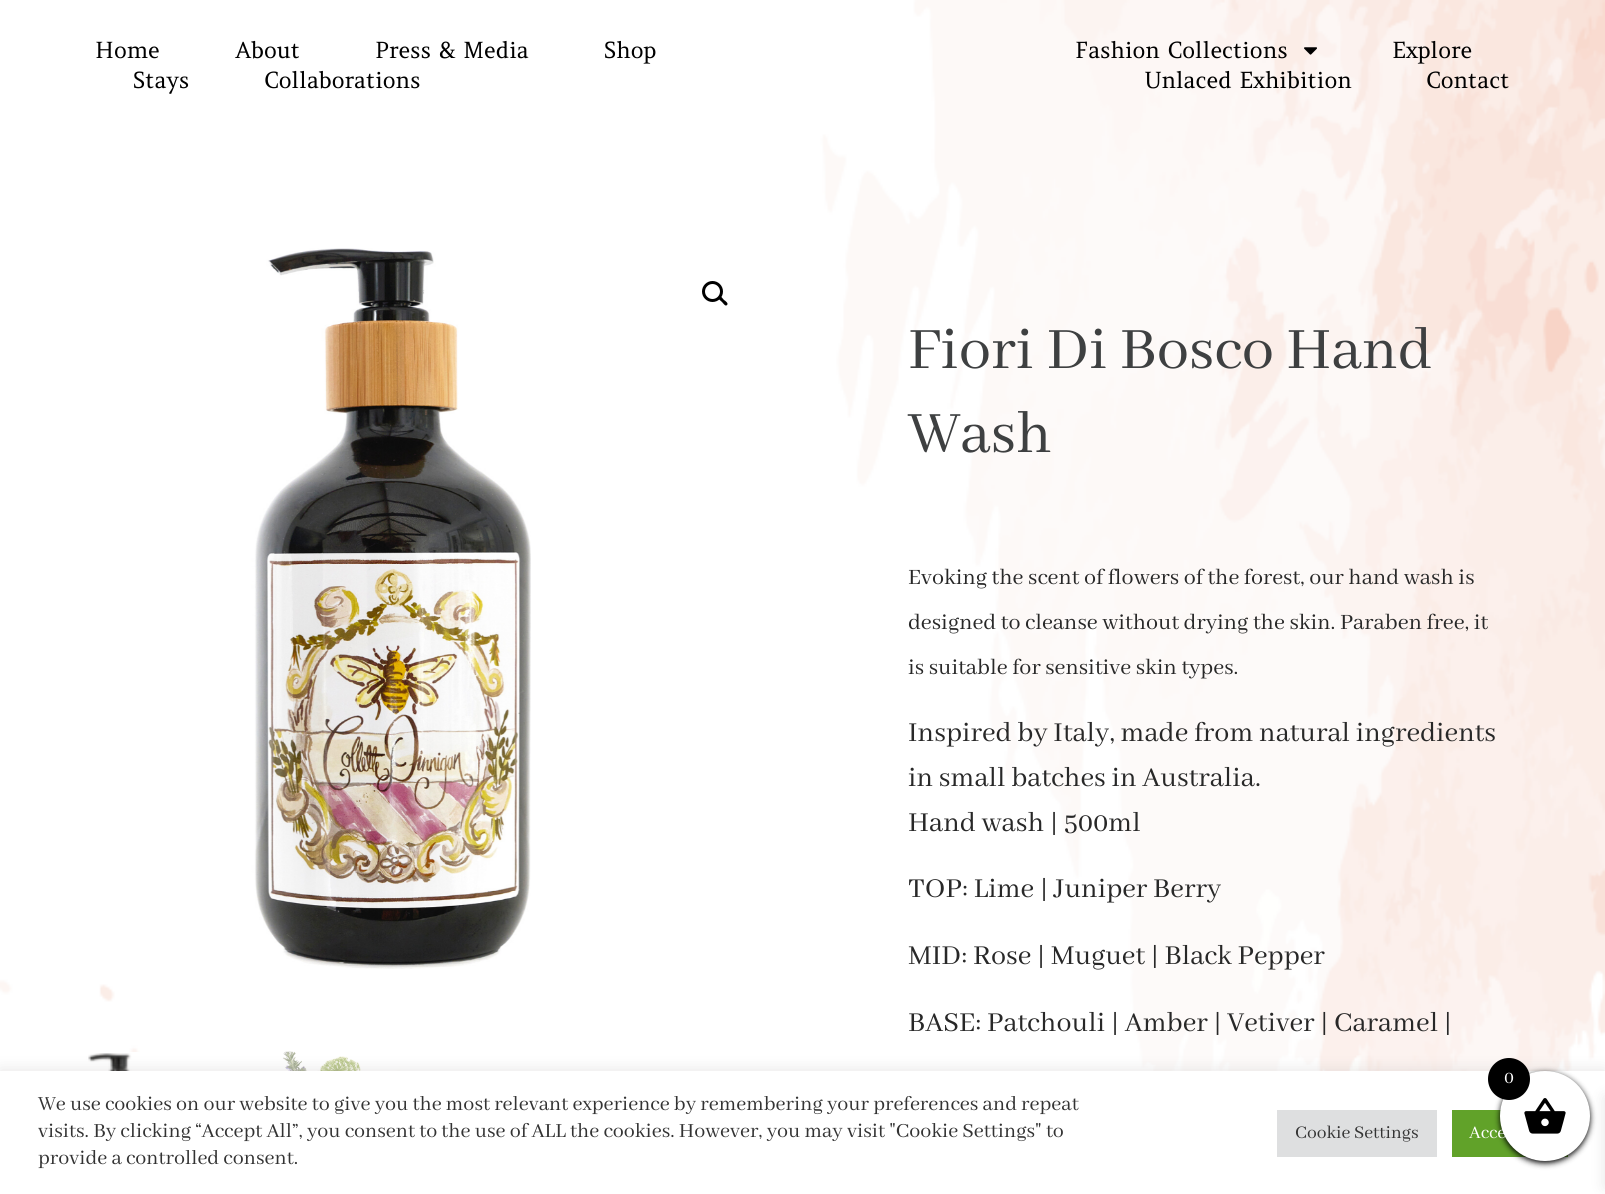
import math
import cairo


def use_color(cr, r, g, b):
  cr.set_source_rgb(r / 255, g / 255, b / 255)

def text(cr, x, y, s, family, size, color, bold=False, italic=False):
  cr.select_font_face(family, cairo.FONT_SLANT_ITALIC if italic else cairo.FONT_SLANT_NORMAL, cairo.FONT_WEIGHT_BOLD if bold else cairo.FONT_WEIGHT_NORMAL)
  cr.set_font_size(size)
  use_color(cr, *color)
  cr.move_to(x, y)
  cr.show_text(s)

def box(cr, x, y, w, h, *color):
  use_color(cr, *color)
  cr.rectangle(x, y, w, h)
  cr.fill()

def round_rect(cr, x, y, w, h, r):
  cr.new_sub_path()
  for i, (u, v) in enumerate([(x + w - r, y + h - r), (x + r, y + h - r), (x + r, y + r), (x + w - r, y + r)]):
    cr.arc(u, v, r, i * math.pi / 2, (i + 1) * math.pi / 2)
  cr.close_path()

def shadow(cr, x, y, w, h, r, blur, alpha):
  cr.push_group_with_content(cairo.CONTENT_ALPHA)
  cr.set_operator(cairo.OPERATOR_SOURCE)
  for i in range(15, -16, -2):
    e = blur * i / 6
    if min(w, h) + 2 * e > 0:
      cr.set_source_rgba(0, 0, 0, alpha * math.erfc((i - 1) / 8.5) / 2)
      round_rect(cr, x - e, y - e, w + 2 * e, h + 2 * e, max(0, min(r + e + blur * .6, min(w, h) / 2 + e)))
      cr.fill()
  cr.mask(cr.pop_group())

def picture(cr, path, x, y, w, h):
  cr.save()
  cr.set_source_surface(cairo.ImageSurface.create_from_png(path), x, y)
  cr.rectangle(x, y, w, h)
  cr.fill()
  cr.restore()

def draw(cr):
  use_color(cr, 255, 255, 255)
  cr.paint()
  picture(cr, "img_01.png", 0, 0, 1605, 1071)
  picture(cr, "img_02.png", 1304, 47, 13, 8)
  picture(cr, "img_03.png", 47, 248, 484, 721)
  cr.arc(712.5, 291.5, 9, 0, 2 * math.pi)
  use_color(cr, 0, 0, 0)
  cr.set_line_width(3)
  cr.stroke()
  cr.new_path()
  cr.move_to(719, 296.5)
  cr.curve_to(720.5, 295, 723, 299, 724, 300)
  cr.curve_to(725, 300.5, 729, 303.5, 727, 305)
  cr.curve_to(725.5, 307, 723, 303, 722, 302)
  cr.curve_to(721, 301, 717, 298.5, 719, 296.5)
  cr.close_path()
  cr.fill()
  picture(cr, "img_04.png", 30, 1052, 132, 19)
  picture(cr, "img_05.png", 229, 1051, 172, 20)
  use_color(cr, 172, 171, 171)
  shadow(cr, 0, 1070, 1605, 123, 0, 7.5, 0.3)
  box(cr, 0, 1071, 1605, 123, 255, 255, 255)
  box(cr, 1452, 1110, 116, 47, 97, 162, 41)
  use_color(cr, 0, 0, 0)
  shadow(cr, 1500, 1073, 90, 90, 45, 3, 1)
  shadow(cr, 1605, 1097, 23, 90, 0, 7.5, 0.1)
  use_color(cr, 255, 255, 255)
  cr.arc(1545, 1116, 45, 0, 2 * math.pi)
  cr.fill()
  picture(cr, "img_06.png", 1524, 1098, 42, 36)
  use_color(cr, 0, 0, 0)
  cr.arc(1509, 1079, 21, 0, 2 * math.pi)
  cr.fill()
  box(cr, 1277, 1110, 160, 47, 222, 223, 224)
  text(cr, 95, 58, "Home", "Amethysta", 22.5, (0, 0, 0))
  text(cr, 235, 58, "About", "Amethysta", 22.5, (0, 0, 0))
  text(cr, 375, 58, "Press & Media", "Amethysta", 22.5, (0, 0, 0))
  text(cr, 604, 58, "Shop", "Amethysta", 22.5, (0, 0, 0))
  text(cr, 133, 88, "Stays", "Amethysta", 22.5, (0, 0, 0))
  text(cr, 264, 88, "Collaborations", "Amethysta", 22.5, (0, 0, 0))
  text(cr, 1075, 58, "Fashion Collections", "Amethysta", 22.5, (0, 0, 0))
  text(cr, 1392, 58, "Explore", "Amethysta", 22.5, (0, 0, 0))
  text(cr, 1144, 88, "Unlaced Exhibition", "Amethysta", 22.5, (0, 0, 0))
  text(cr, 1426, 88, "Contact", "Amethysta", 22.5, (0, 0, 0))
  text(cr, 908, 368, "Fiori Di Bosco Hand", "Abhaya Libre", 64.5, (62, 64, 65))
  text(cr, 908, 452, "Wash", "Abhaya Libre", 64.5, (62, 64, 65))
  text(cr, 908, 584, "Evoking the scent of flowers of the forest, our hand wash is", "Abhaya Libre", 24, (40, 40, 40))
  text(cr, 908, 629, "designed to cleanse without drying the skin. Paraben free, it", "Abhaya Libre", 24, (40, 40, 40))
  text(cr, 908, 674, "is suitable for sensitive skin types.", "Abhaya Libre", 24, (40, 40, 40))
  text(cr, 908, 741, "Inspired by Italy, made from natural ingredients", "Abhaya Libre", 30, (40, 40, 40))
  text(cr, 908, 786, "in small batches in Australia.", "Abhaya Libre", 30, (40, 40, 40))
  text(cr, 908, 831, "Hand wash | 500ml", "Abhaya Libre", 30, (40, 40, 40))
  text(cr, 908, 897, "TOP: Lime | Juniper Berry", "Abhaya Libre", 30, (40, 40, 40))
  text(cr, 908, 964, "MID: Rose | Muguet | Black Pepper", "Abhaya Libre", 30, (40, 40, 40))
  text(cr, 908, 1031, "BASE: Patchouli | Amber | Vetiver | Caramel |", "Abhaya Libre", 30, (40, 40, 40))
  text(cr, 1504, 1083, "0", "Abhaya Libre", 19.5, (255, 255, 255))
  text(cr, 38, 1110, "We use cookies on our website to give you the most relevant experience by remembering your preferences and repeat", "Abhaya Libre", 22, (51, 51, 51))
  text(cr, 38, 1137, "visits. By clicking “Accept All”, you consent to the use of ALL the cookies. However, you may visit \"Cookie Settings\" to", "Abhaya Libre", 22, (51, 51, 51))
  text(cr, 38, 1164, "provide a controlled consent.", "Abhaya Libre", 22, (51, 51, 51))
  text(cr, 1295, 1138, "Cookie Settings", "Abhaya Libre", 19.5, (51, 51, 51))
  text(cr, 1469, 1138, "Acce", "Abhaya Libre", 19.5, (255, 255, 255))


surface = cairo.ImageSurface(cairo.FORMAT_RGB24, 1605, 1194)
cr = cairo.Context(surface)
options = cairo.FontOptions()
options.set_hint_metrics(cairo.HINT_METRICS_OFF)
options.set_hint_style(cairo.HINT_STYLE_NONE)
cr.set_font_options(options)
cr.set_miter_limit(4)
draw(cr)
surface.write_to_png("out.png")
